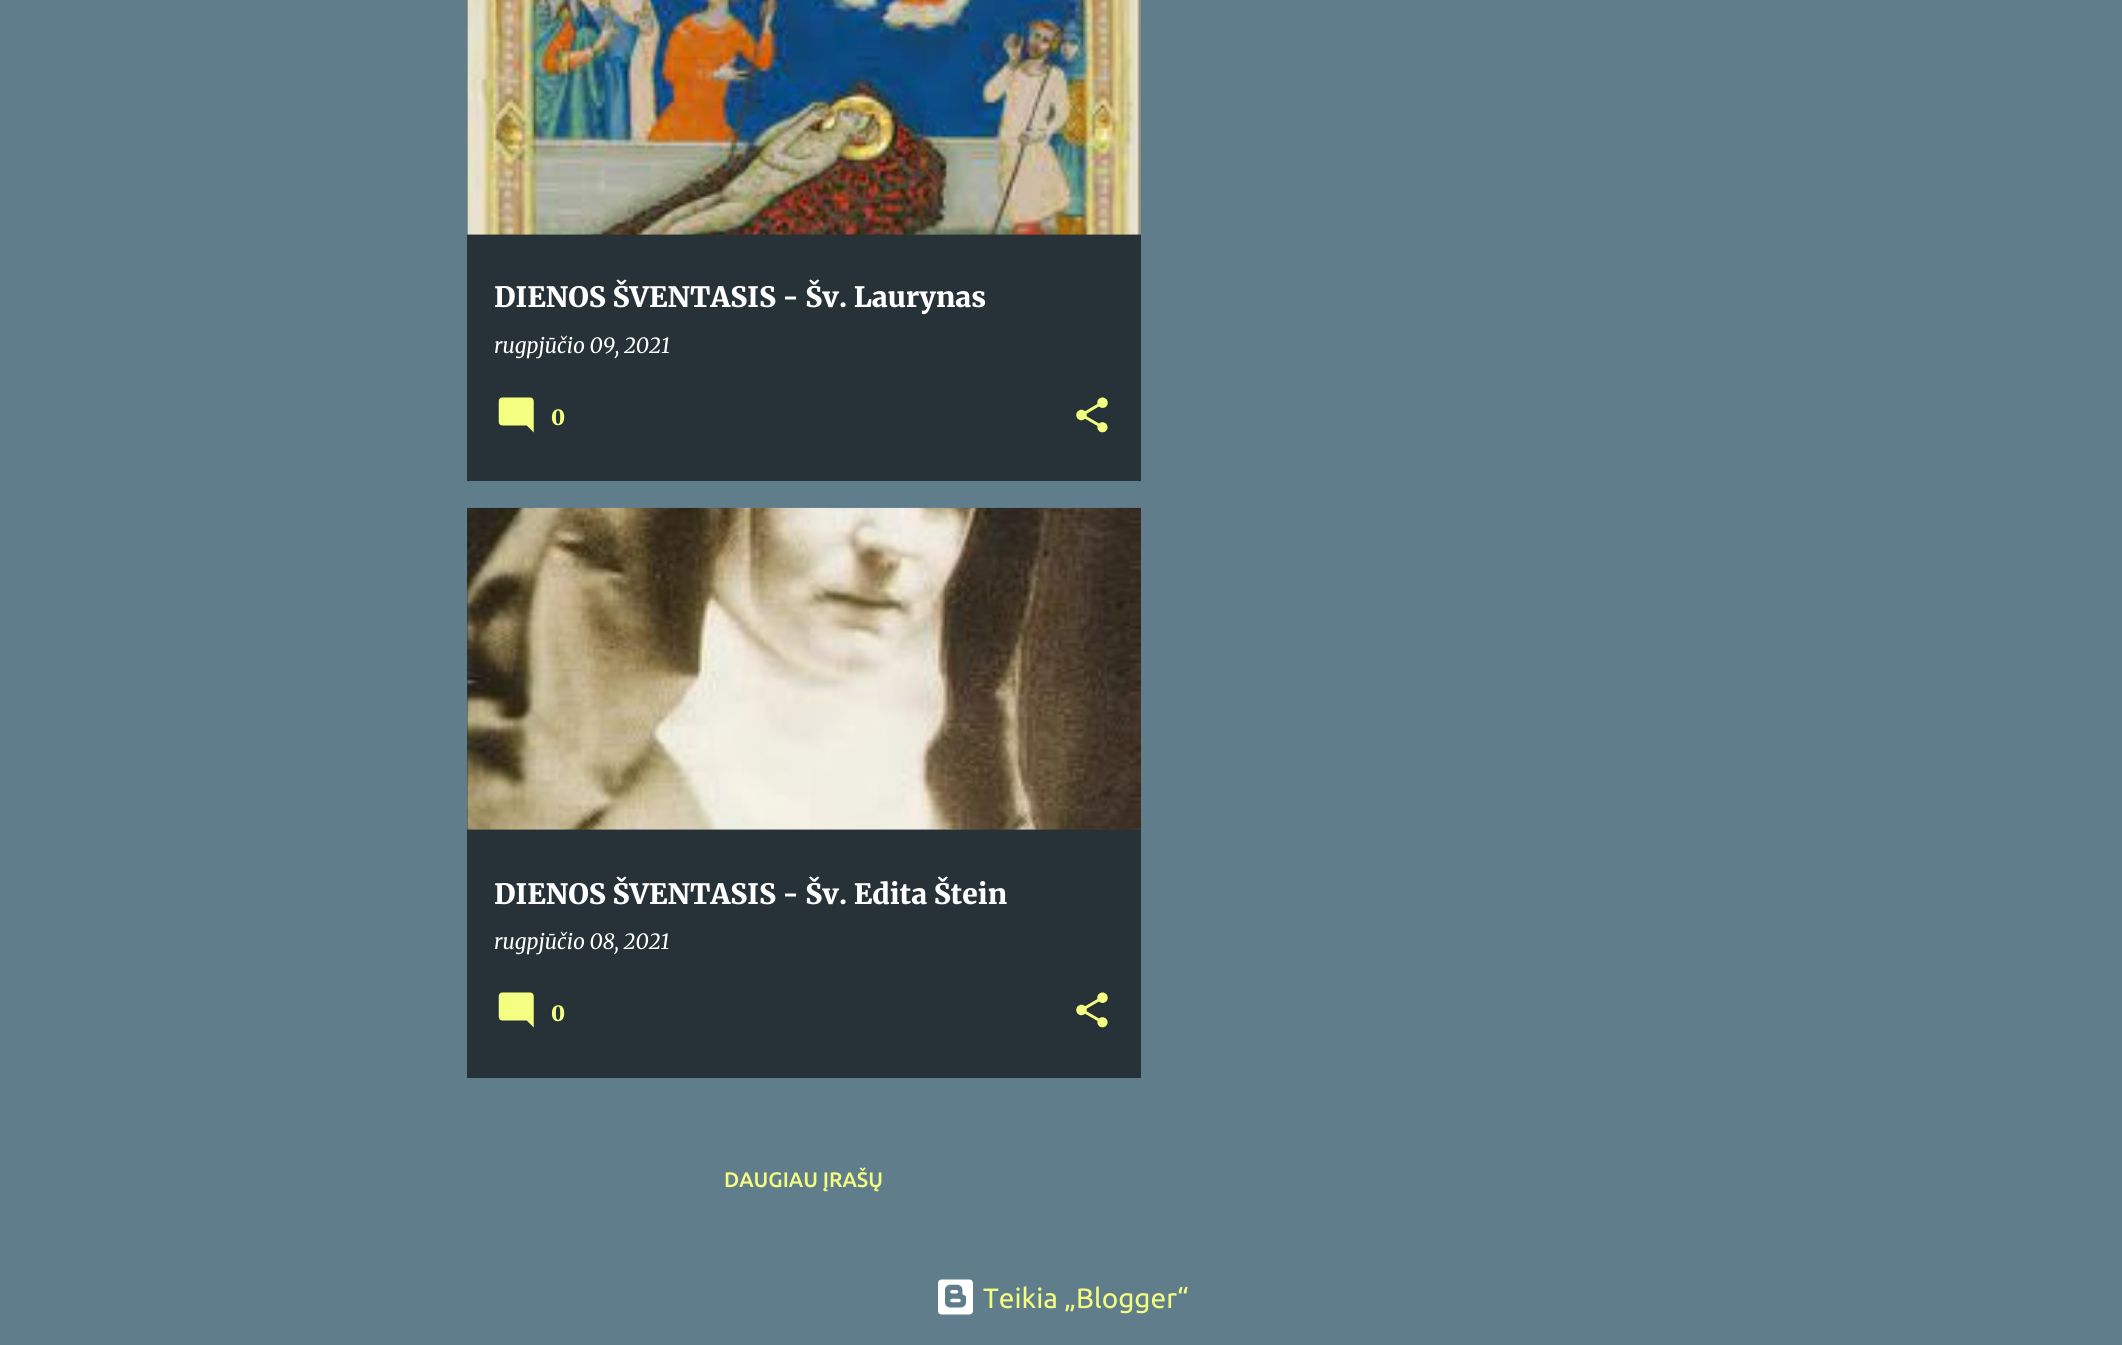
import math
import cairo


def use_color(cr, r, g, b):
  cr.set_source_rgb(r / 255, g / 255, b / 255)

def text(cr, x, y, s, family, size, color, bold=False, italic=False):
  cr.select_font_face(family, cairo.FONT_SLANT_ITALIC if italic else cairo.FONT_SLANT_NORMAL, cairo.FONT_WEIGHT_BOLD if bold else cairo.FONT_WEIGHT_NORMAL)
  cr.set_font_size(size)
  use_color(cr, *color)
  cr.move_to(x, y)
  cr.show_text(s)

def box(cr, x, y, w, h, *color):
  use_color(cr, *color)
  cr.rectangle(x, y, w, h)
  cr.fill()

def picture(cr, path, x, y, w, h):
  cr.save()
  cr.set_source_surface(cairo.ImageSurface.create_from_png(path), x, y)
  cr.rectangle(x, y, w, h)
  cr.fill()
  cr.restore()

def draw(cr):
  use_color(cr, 96, 125, 139)
  cr.paint()
  box(cr, 467, 0, 674, 481, 38, 50, 56)
  picture(cr, "img_01.png", 467, 0, 674, 235)
  picture(cr, "img_02.png", 498, 397, 36, 36)
  picture(cr, "img_03.png", 1076, 397, 32, 36)
  box(cr, 467, 508, 674, 570, 38, 50, 56)
  picture(cr, "img_04.png", 467, 507, 674, 323)
  picture(cr, "img_05.png", 498, 992, 36, 36)
  picture(cr, "img_06.png", 1076, 992, 32, 36)
  picture(cr, "img_07.png", 938, 1279, 35, 36)
  text(cr, 494, 307, "DIENOS ŠVENTASIS - Šv. Laurynas", "Merriweather Black", 28, (255, 255, 255))
  text(cr, 494, 353, "rugpjūčio 09, 2021", "Merriweather", 21, (255, 255, 255), italic=True)
  text(cr, 551, 425, "0", "Merriweather Black", 21, (244, 255, 129))
  text(cr, 494, 904, "DIENOS ŠVENTASIS - Šv. Edita Štein", "Merriweather Black", 28, (255, 255, 255))
  text(cr, 494, 949, "rugpjūčio 08, 2021", "Merriweather", 21, (255, 255, 255), italic=True)
  text(cr, 551, 1021, "0", "Merriweather Black", 21, (244, 255, 129))
  text(cr, 724, 1187, "DAUGIAU ĮRAŠŲ", "Ubuntu Medium", 21, (244, 255, 129))
  text(cr, 983, 1308, "Teikia „Blogger“", "Ubuntu", 28, (244, 255, 129))


surface = cairo.ImageSurface(cairo.FORMAT_RGB24, 2122, 1345)
cr = cairo.Context(surface)
options = cairo.FontOptions()
options.set_hint_metrics(cairo.HINT_METRICS_OFF)
options.set_hint_style(cairo.HINT_STYLE_NONE)
cr.set_font_options(options)
cr.set_miter_limit(4)
draw(cr)
surface.write_to_png("out.png")
